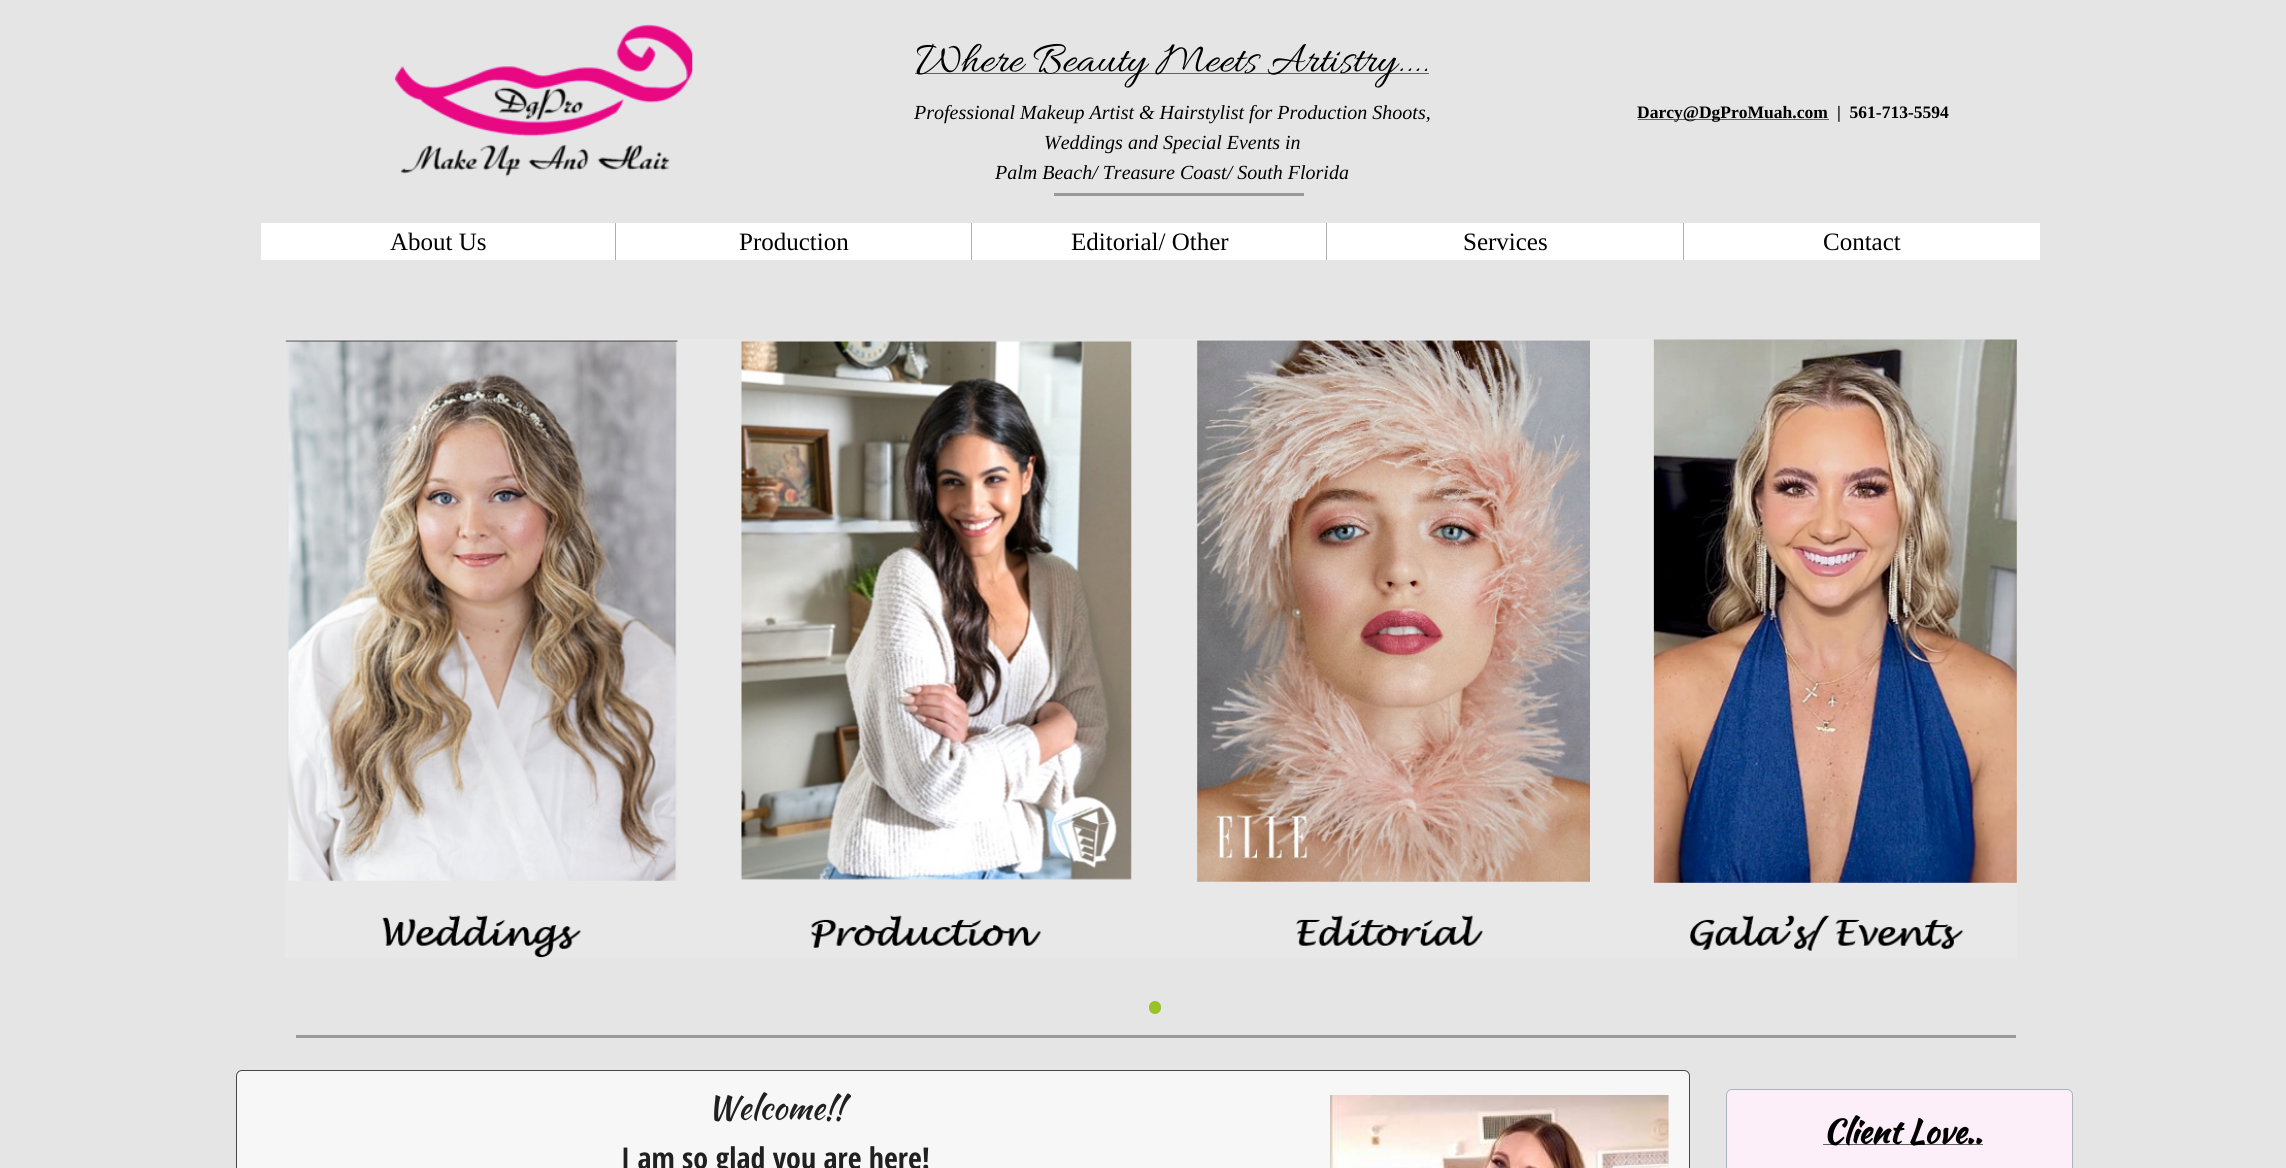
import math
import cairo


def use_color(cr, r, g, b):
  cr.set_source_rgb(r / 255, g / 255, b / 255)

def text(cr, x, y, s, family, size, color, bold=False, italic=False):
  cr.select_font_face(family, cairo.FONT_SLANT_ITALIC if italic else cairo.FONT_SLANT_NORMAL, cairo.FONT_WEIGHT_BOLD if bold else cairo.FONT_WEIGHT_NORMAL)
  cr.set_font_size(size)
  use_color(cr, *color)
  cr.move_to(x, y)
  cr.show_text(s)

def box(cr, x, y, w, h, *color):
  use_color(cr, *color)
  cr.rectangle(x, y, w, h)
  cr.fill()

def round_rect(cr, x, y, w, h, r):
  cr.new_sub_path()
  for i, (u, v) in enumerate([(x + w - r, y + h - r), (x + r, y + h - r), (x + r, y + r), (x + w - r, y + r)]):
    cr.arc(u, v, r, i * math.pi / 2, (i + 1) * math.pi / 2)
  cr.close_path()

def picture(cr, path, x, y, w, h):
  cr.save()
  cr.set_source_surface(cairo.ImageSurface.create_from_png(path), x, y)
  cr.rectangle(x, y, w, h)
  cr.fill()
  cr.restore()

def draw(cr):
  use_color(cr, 229, 229, 229)
  cr.paint()
  picture(cr, "img_01.png", 394, 24, 299, 153)
  box(cr, 915, 73, 514, 1, 98, 98, 98)
  box(cr, 1638, 119, 191, 1, 98, 98, 98)
  box(cr, 1054, 193, 250, 3, 153, 153, 153)
  box(cr, 261, 223, 354, 37, 255, 255, 255)
  box(cr, 615, 223, 1, 37, 174, 174, 174)
  box(cr, 616, 223, 1067, 37, 255, 255, 255)
  box(cr, 971, 223, 1, 37, 174, 174, 174)
  box(cr, 1326, 223, 1, 37, 174, 174, 174)
  box(cr, 1683, 223, 1, 37, 174, 174, 174)
  box(cr, 1684, 223, 356, 37, 255, 255, 255)
  picture(cr, "img_02.png", 285, 339, 1732, 619)
  use_color(cr, 152, 194, 42)
  round_rect(cr, 1149, 1001, 12, 13, 6)
  cr.fill()
  box(cr, 296, 1035, 1720, 3, 153, 153, 153)
  use_color(cr, 247, 247, 247)
  cr.new_path()
  cr.move_to(242, 1070)
  cr.line_to(1684, 1070)
  cr.curve_to(1687.5, 1070, 1690, 1072.5, 1690, 1076)
  cr.line_to(1690, 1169)
  cr.line_to(236, 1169)
  cr.line_to(236, 1076)
  cr.curve_to(236, 1072.5, 238.5, 1070, 242, 1070)
  cr.close_path()
  cr.fill()
  round_rect(cr, 236.5, 1070.5, 1453, 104, 5.5)
  use_color(cr, 71, 71, 71)
  cr.set_line_width(1)
  cr.stroke()
  use_color(cr, 252, 239, 249)
  cr.new_path()
  cr.move_to(1732, 1089)
  cr.line_to(2067, 1089)
  cr.curve_to(2070.5, 1089, 2073, 1091.5, 2073, 1095)
  cr.line_to(2073, 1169)
  cr.line_to(1726, 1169)
  cr.line_to(1726, 1095)
  cr.curve_to(1726, 1091.5, 1728.5, 1089, 1732, 1089)
  cr.close_path()
  cr.fill()
  round_rect(cr, 1726.5, 1089.5, 346, 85, 5.5)
  use_color(cr, 169, 180, 187)
  cr.stroke()
  picture(cr, "img_03.png", 1330, 1095, 339, 73)
  box(cr, 1823, 1144, 160, 1, 98, 98, 98)
  text(cr, 916, 71, "Where Beauty Meets Artistry....", "Allura", 45, (0, 0, 0))
  text(cr, 914, 119, "Professional Makeup Artist & Hairstylist for Production Shoots,", "Liberation Serif", 20, (0, 0, 0), italic=True)
  text(cr, 1044, 149, "Weddings and Special Events in", "Liberation Serif", 20, (0, 0, 0), italic=True)
  text(cr, 995, 179, "Palm Beach/ Treasure Coast/ South Florida", "Liberation Serif", 20, (0, 0, 0), italic=True)
  text(cr, 1637, 118, "Darcy@DgProMuah.com", "Liberation Serif", 17.5, (0, 0, 0), bold=True)
  text(cr, 1837, 118, "|  561-713-5594", "Liberation Serif", 17.5, (0, 0, 0), bold=True)
  text(cr, 390, 250, "About Us", "Liberation Serif", 25, (0, 0, 0))
  text(cr, 739, 250, "Production", "Liberation Serif", 25, (0, 0, 0))
  text(cr, 1071, 250, "Editorial/ Other", "Liberation Serif", 25, (0, 0, 0))
  text(cr, 1463, 250, "Services", "Liberation Serif", 25, (0, 0, 0))
  text(cr, 1823, 250, "Contact", "Liberation Serif", 25, (0, 0, 0))
  text(cr, 707, 1119, "Welcome!!", "Kaushan Script", 32.5, (32, 32, 32))
  text(cr, 621, 1169, "I am so glad you are here!", "Open Sans Condensed", 30, (32, 32, 32), bold=True)
  text(cr, 1823, 1143, "Client Love..", "Kaushan Script", 32.5, (0, 0, 0), bold=True)


surface = cairo.ImageSurface(cairo.FORMAT_RGB24, 2286, 1168)
cr = cairo.Context(surface)
options = cairo.FontOptions()
options.set_hint_metrics(cairo.HINT_METRICS_OFF)
options.set_hint_style(cairo.HINT_STYLE_NONE)
cr.set_font_options(options)
cr.set_miter_limit(4)
draw(cr)
surface.write_to_png("out.png")
